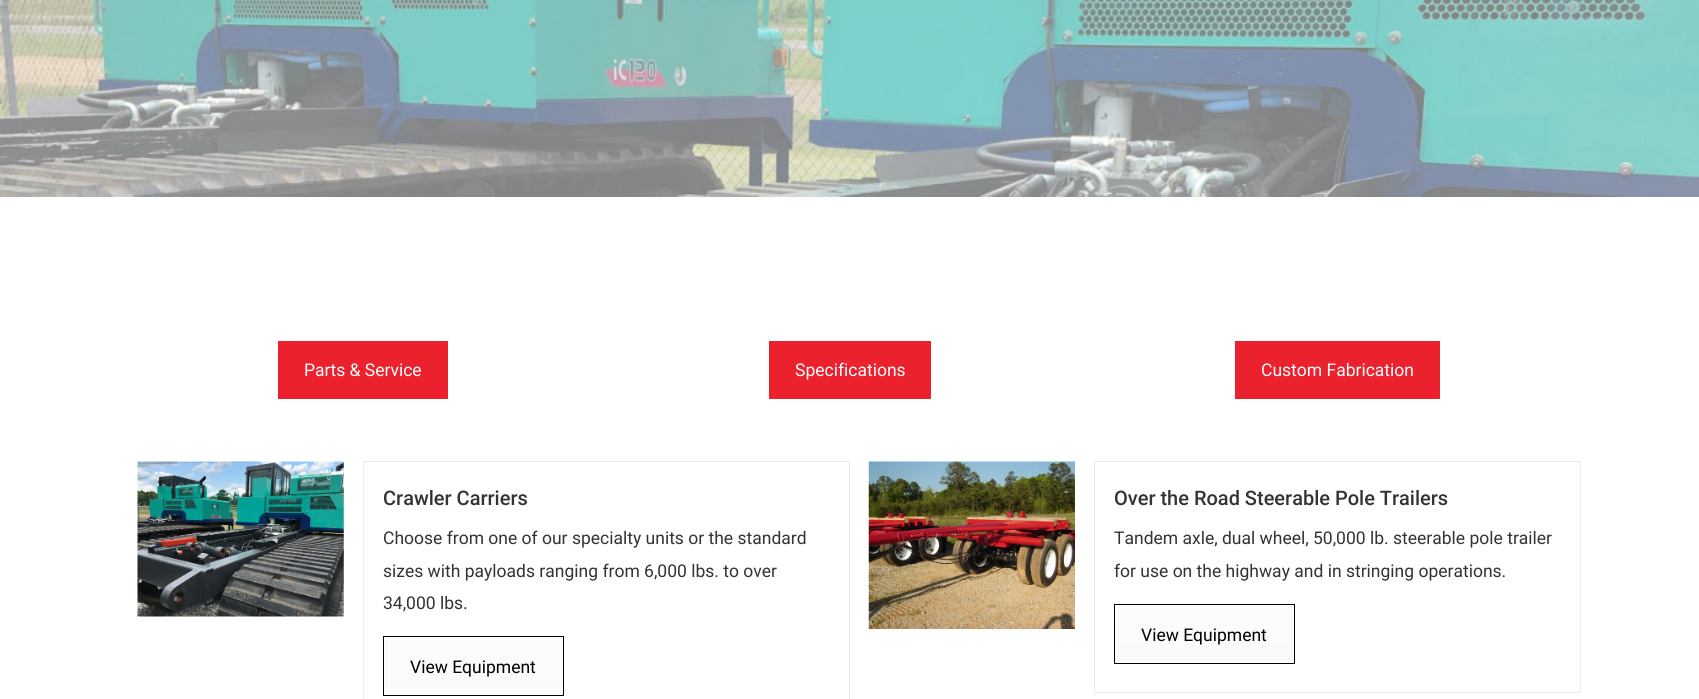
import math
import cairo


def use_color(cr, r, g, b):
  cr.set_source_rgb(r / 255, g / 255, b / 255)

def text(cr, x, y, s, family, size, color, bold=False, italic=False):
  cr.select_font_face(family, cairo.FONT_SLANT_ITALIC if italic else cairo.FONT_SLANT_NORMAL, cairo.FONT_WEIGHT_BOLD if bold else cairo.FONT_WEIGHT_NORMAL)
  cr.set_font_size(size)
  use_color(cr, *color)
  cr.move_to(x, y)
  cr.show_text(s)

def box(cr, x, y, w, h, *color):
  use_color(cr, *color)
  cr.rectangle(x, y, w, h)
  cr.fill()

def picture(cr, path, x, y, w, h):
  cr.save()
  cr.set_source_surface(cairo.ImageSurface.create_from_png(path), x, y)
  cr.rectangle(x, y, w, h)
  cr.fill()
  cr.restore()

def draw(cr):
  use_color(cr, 255, 255, 255)
  cr.paint()
  picture(cr, "img_01.png", 0, 0, 1699, 197)
  box(cr, 278, 341, 170, 58, 235, 33, 46)
  box(cr, 769, 341, 162, 58, 235, 33, 46)
  box(cr, 1235, 341, 205, 58, 235, 33, 46)
  picture(cr, "img_02.png", 137, 461, 207, 156)
  cr.rectangle(363.5, 461.5, 486, 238)
  use_color(cr, 235, 235, 235)
  cr.set_line_width(1)
  cr.stroke()
  cr.rectangle(383.5, 636.5, 180, 59)
  use_color(cr, 0, 0, 0)
  cr.stroke()
  gradient = cairo.LinearGradient(473, 639, 473, 694)
  gradient.add_color_stop_rgba(0, 0.988, 0.988, 0.988, 1)
  gradient.add_color_stop_rgba(1, 0.98, 0.98, 0.98, 1)
  cr.set_source(gradient)
  cr.rectangle(385, 639, 177, 55)
  cr.fill()
  picture(cr, "img_03.png", 868, 461, 207, 168)
  cr.rectangle(1094.5, 461.5, 486, 231)
  use_color(cr, 235, 235, 235)
  cr.stroke()
  cr.rectangle(1114.5, 604.5, 180, 59)
  use_color(cr, 0, 0, 0)
  cr.stroke()
  gradient = cairo.LinearGradient(1204, 606, 1204, 661)
  gradient.add_color_stop_rgba(0, 0.988, 0.988, 0.988, 1)
  gradient.add_color_stop_rgba(1, 0.98, 0.98, 0.98, 1)
  cr.set_source(gradient)
  cr.rectangle(1116, 606, 177, 55)
  cr.fill()
  text(cr, 304, 376, "Parts & Service", "Roboto", 17.5, (255, 255, 255))
  text(cr, 795, 376, "Specifications", "Roboto", 17.5, (255, 255, 255))
  text(cr, 1261, 376, "Custom Fabrication", "Roboto", 17.5, (255, 255, 255))
  text(cr, 383, 505, "Crawler Carriers", "Roboto Medium", 20, (51, 51, 51))
  text(cr, 383, 544, "Choose from one of our specialty units or the standard", "Roboto", 17.5, (51, 51, 51))
  text(cr, 383, 577, "sizes with payloads ranging from 6,000 lbs. to over", "Roboto", 17.5, (51, 51, 51))
  text(cr, 383, 609, "34,000 lbs.", "Roboto", 17.5, (51, 51, 51))
  text(cr, 410, 673, "View Equipment", "Roboto", 17.5, (0, 0, 0))
  text(cr, 1114, 505, "Over the Road Steerable Pole Trailers", "Roboto Medium", 20, (51, 51, 51))
  text(cr, 1114, 544, "Tandem axle, dual wheel, 50,000 lb. steerable pole trailer", "Roboto", 17.5, (51, 51, 51))
  text(cr, 1114, 577, "for use on the highway and in stringing operations.", "Roboto", 17.5, (51, 51, 51))
  text(cr, 1141, 641, "View Equipment", "Roboto", 17.5, (0, 0, 0))


surface = cairo.ImageSurface(cairo.FORMAT_RGB24, 1699, 699)
cr = cairo.Context(surface)
options = cairo.FontOptions()
options.set_hint_metrics(cairo.HINT_METRICS_OFF)
options.set_hint_style(cairo.HINT_STYLE_NONE)
cr.set_font_options(options)
cr.set_miter_limit(4)
draw(cr)
surface.write_to_png("out.png")
